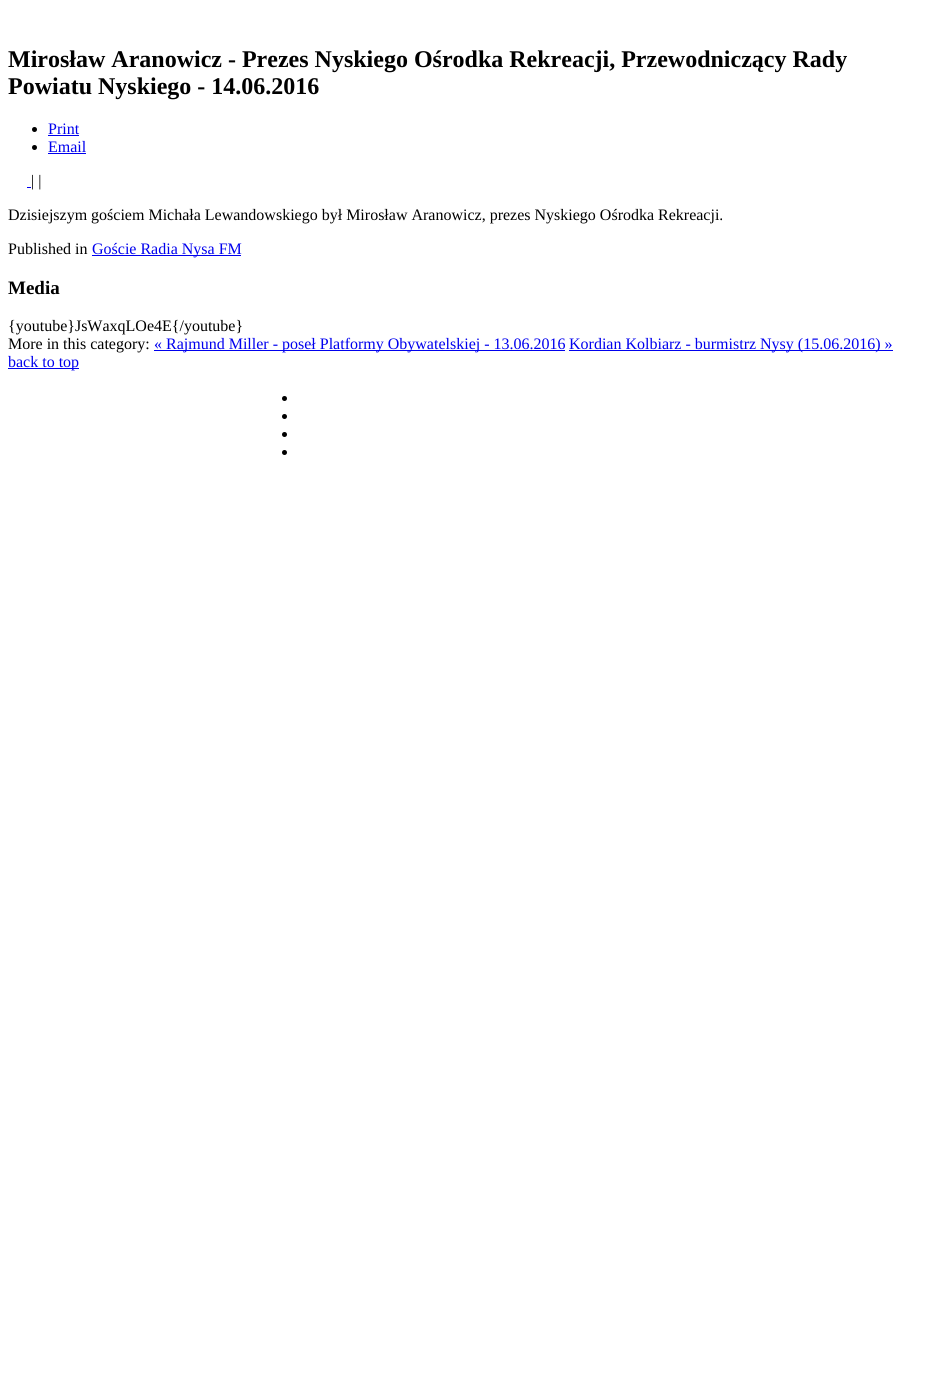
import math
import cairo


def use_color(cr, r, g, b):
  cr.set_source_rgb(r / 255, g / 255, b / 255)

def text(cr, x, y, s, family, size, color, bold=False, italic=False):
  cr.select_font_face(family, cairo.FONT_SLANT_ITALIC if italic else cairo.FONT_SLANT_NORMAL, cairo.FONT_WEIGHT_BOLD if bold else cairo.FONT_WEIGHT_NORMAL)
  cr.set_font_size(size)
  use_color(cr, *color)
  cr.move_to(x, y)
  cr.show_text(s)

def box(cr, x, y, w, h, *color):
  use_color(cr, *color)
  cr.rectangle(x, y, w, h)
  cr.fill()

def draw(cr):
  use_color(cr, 255, 255, 255)
  cr.paint()
  use_color(cr, 0, 0, 0)
  cr.arc(34.5, 129.5, 2.5, 0, 2 * math.pi)
  cr.fill()
  box(cr, 48, 135, 31, 1, 0, 0, 238)
  use_color(cr, 0, 0, 0)
  cr.arc(34.5, 147.5, 2.5, 0, 2 * math.pi)
  cr.fill()
  box(cr, 48, 153, 38, 1, 0, 0, 238)
  box(cr, 27, 187, 4, 1, 0, 0, 238)
  box(cr, 92, 255, 149, 1, 0, 0, 238)
  box(cr, 154, 350, 411, 1, 0, 0, 238)
  box(cr, 569, 350, 324, 1, 0, 0, 238)
  box(cr, 8, 368, 71, 1, 0, 0, 238)
  use_color(cr, 0, 0, 0)
  cr.arc(284.5, 398.5, 2.5, 0, 2 * math.pi)
  cr.fill()
  cr.arc(284.5, 416.5, 2.5, 0, 2 * math.pi)
  cr.fill()
  cr.arc(284.5, 434.5, 2.5, 0, 2 * math.pi)
  cr.fill()
  cr.arc(284.5, 452.5, 2.5, 0, 2 * math.pi)
  cr.fill()
  text(cr, 8, 67, "Mirosław Aranowicz - Prezes Nyskiego Ośrodka Rekreacji, Przewodniczący Rady", "Liberation Serif", 24, (0, 0, 0), bold=True)
  text(cr, 8, 94, "Powiatu Nyskiego - 14.06.2016", "Liberation Serif", 24, (0, 0, 0), bold=True)
  text(cr, 48, 134, "Print", "Liberation Serif", 16, (0, 0, 238))
  text(cr, 48, 152, "Email", "Liberation Serif", 16, (0, 0, 238))
  text(cr, 31, 186, "| |", "Liberation Serif", 16, (0, 0, 0))
  text(cr, 8, 220, "Dzisiejszym gościem Michała Lewandowskiego był Mirosław Aranowicz, prezes Nyskiego Ośrodka Rekreacji.", "Liberation Serif", 16, (0, 0, 0))
  text(cr, 8, 254, "Published in", "Liberation Serif", 16, (0, 0, 0))
  text(cr, 92, 254, "Goście Radia Nysa FM", "Liberation Serif", 16, (0, 0, 238))
  text(cr, 8, 294, "Media", "Liberation Serif", 19, (0, 0, 0), bold=True)
  text(cr, 8, 331, "{youtube}JsWaxqLOe4E{/youtube}", "Liberation Serif", 16, (0, 0, 0))
  text(cr, 8, 349, "More in this category:", "Liberation Serif", 16, (0, 0, 0))
  text(cr, 154, 349, "« Rajmund Miller - poseł Platformy Obywatelskiej - 13.06.2016", "Liberation Serif", 16, (0, 0, 238))
  text(cr, 569, 349, "Kordian Kolbiarz - burmistrz Nysy (15.06.2016) »", "Liberation Serif", 16, (0, 0, 238))
  text(cr, 8, 367, "back to top", "Liberation Serif", 16, (0, 0, 238))


surface = cairo.ImageSurface(cairo.FORMAT_RGB24, 926, 1395)
cr = cairo.Context(surface)
options = cairo.FontOptions()
options.set_hint_metrics(cairo.HINT_METRICS_OFF)
options.set_hint_style(cairo.HINT_STYLE_NONE)
cr.set_font_options(options)
cr.set_miter_limit(4)
draw(cr)
surface.write_to_png("out.png")
